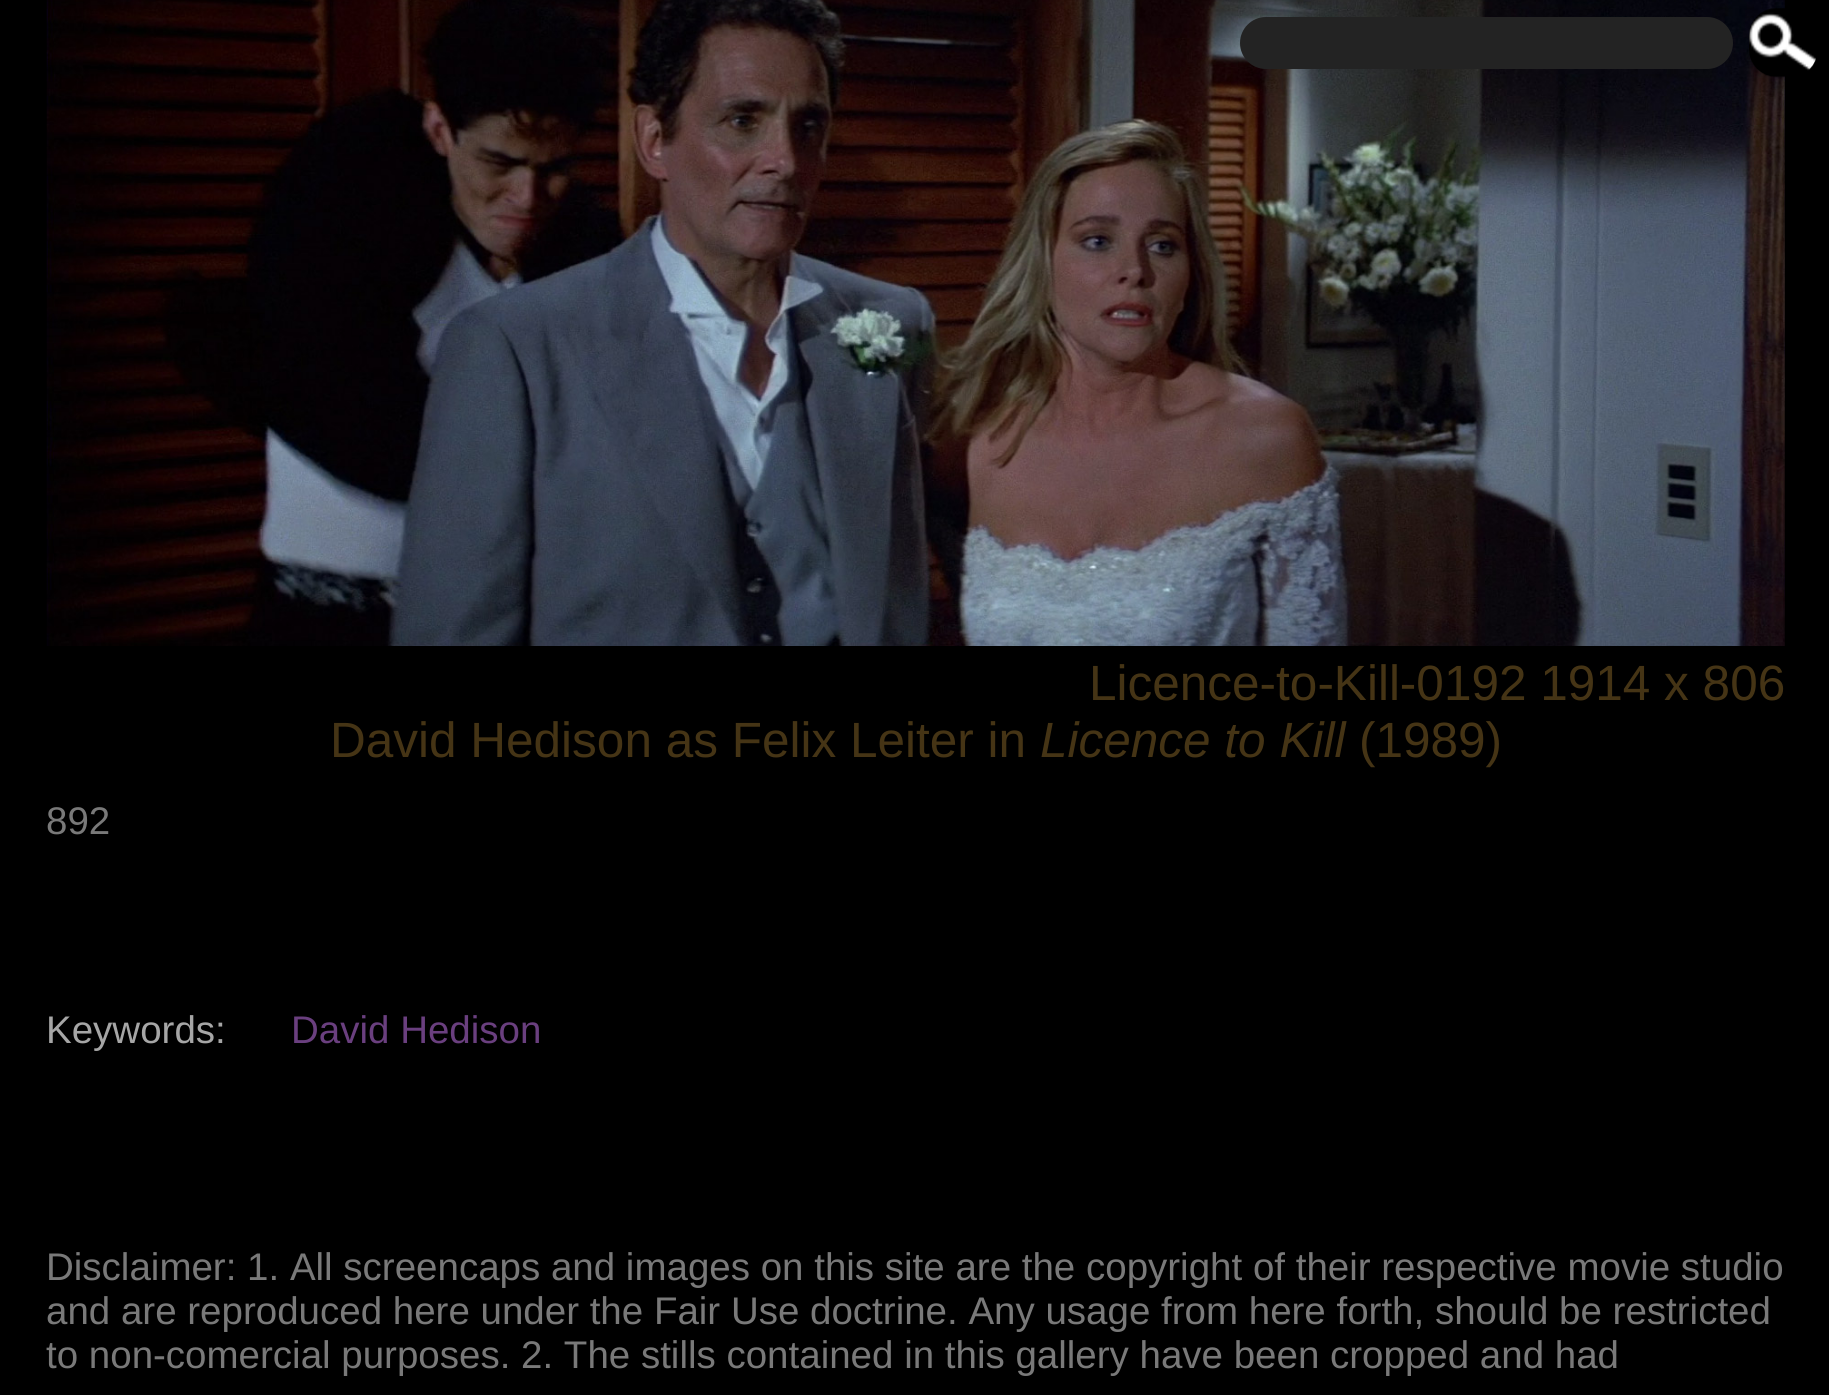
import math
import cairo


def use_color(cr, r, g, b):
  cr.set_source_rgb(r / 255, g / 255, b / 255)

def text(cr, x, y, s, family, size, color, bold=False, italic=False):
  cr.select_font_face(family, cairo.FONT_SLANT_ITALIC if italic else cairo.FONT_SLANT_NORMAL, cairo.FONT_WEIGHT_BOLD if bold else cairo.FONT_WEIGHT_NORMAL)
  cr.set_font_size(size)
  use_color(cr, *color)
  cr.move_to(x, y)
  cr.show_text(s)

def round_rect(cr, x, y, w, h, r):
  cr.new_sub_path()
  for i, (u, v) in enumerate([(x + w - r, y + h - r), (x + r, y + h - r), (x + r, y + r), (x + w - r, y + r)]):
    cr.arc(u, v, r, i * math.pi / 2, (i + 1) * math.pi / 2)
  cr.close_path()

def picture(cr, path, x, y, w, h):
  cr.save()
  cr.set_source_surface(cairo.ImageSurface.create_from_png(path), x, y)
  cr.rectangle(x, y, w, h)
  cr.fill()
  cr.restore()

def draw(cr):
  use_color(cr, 0, 0, 0)
  cr.paint()
  picture(cr, "img_02.png", 46, 0, 1739, 646)
  use_color(cr, 35, 35, 35)
  round_rect(cr, 1240, 17, 493, 52, 26)
  cr.fill()
  picture(cr, "img_01.png", 1749, 8, 67, 70)
  text(cr, 1089, 700, "Licence-to-Kill-0192 1914 x 806", "Liberation Sans", 49.5, (69, 52, 21))
  text(cr, 330, 757, "David Hedison as Felix Leiter in", "Liberation Sans", 49.5, (69, 52, 21))
  text(cr, 1040, 757, "Licence to Kill", "Liberation Sans", 49.5, (69, 52, 21), italic=True)
  text(cr, 1359, 757, "(1989)", "Liberation Sans", 49.5, (69, 52, 21))
  text(cr, 46, 834, "892", "Liberation Sans", 38.5, (121, 121, 121))
  text(cr, 46, 1043, "Keywords:", "Liberation Sans", 38.5, (166, 166, 166))
  text(cr, 291, 1043, "David Hedison", "Liberation Sans", 38.5, (106, 63, 127))
  text(cr, 46, 1280, "Disclaimer: 1. All screencaps and images on this site are the copyright of their respective movie studio", "Liberation Sans", 38.5, (121, 121, 121))
  text(cr, 46, 1324, "and are reproduced here under the Fair Use doctrine. Any usage from here forth, should be restricted", "Liberation Sans", 38.5, (121, 121, 121))
  text(cr, 46, 1368, "to non-comercial purposes. 2. The stills contained in this gallery have been cropped and had", "Liberation Sans", 38.5, (121, 121, 121))


surface = cairo.ImageSurface(cairo.FORMAT_RGB24, 1829, 1395)
cr = cairo.Context(surface)
options = cairo.FontOptions()
options.set_hint_metrics(cairo.HINT_METRICS_OFF)
options.set_hint_style(cairo.HINT_STYLE_NONE)
cr.set_font_options(options)
cr.set_miter_limit(4)
draw(cr)
surface.write_to_png("out.png")
